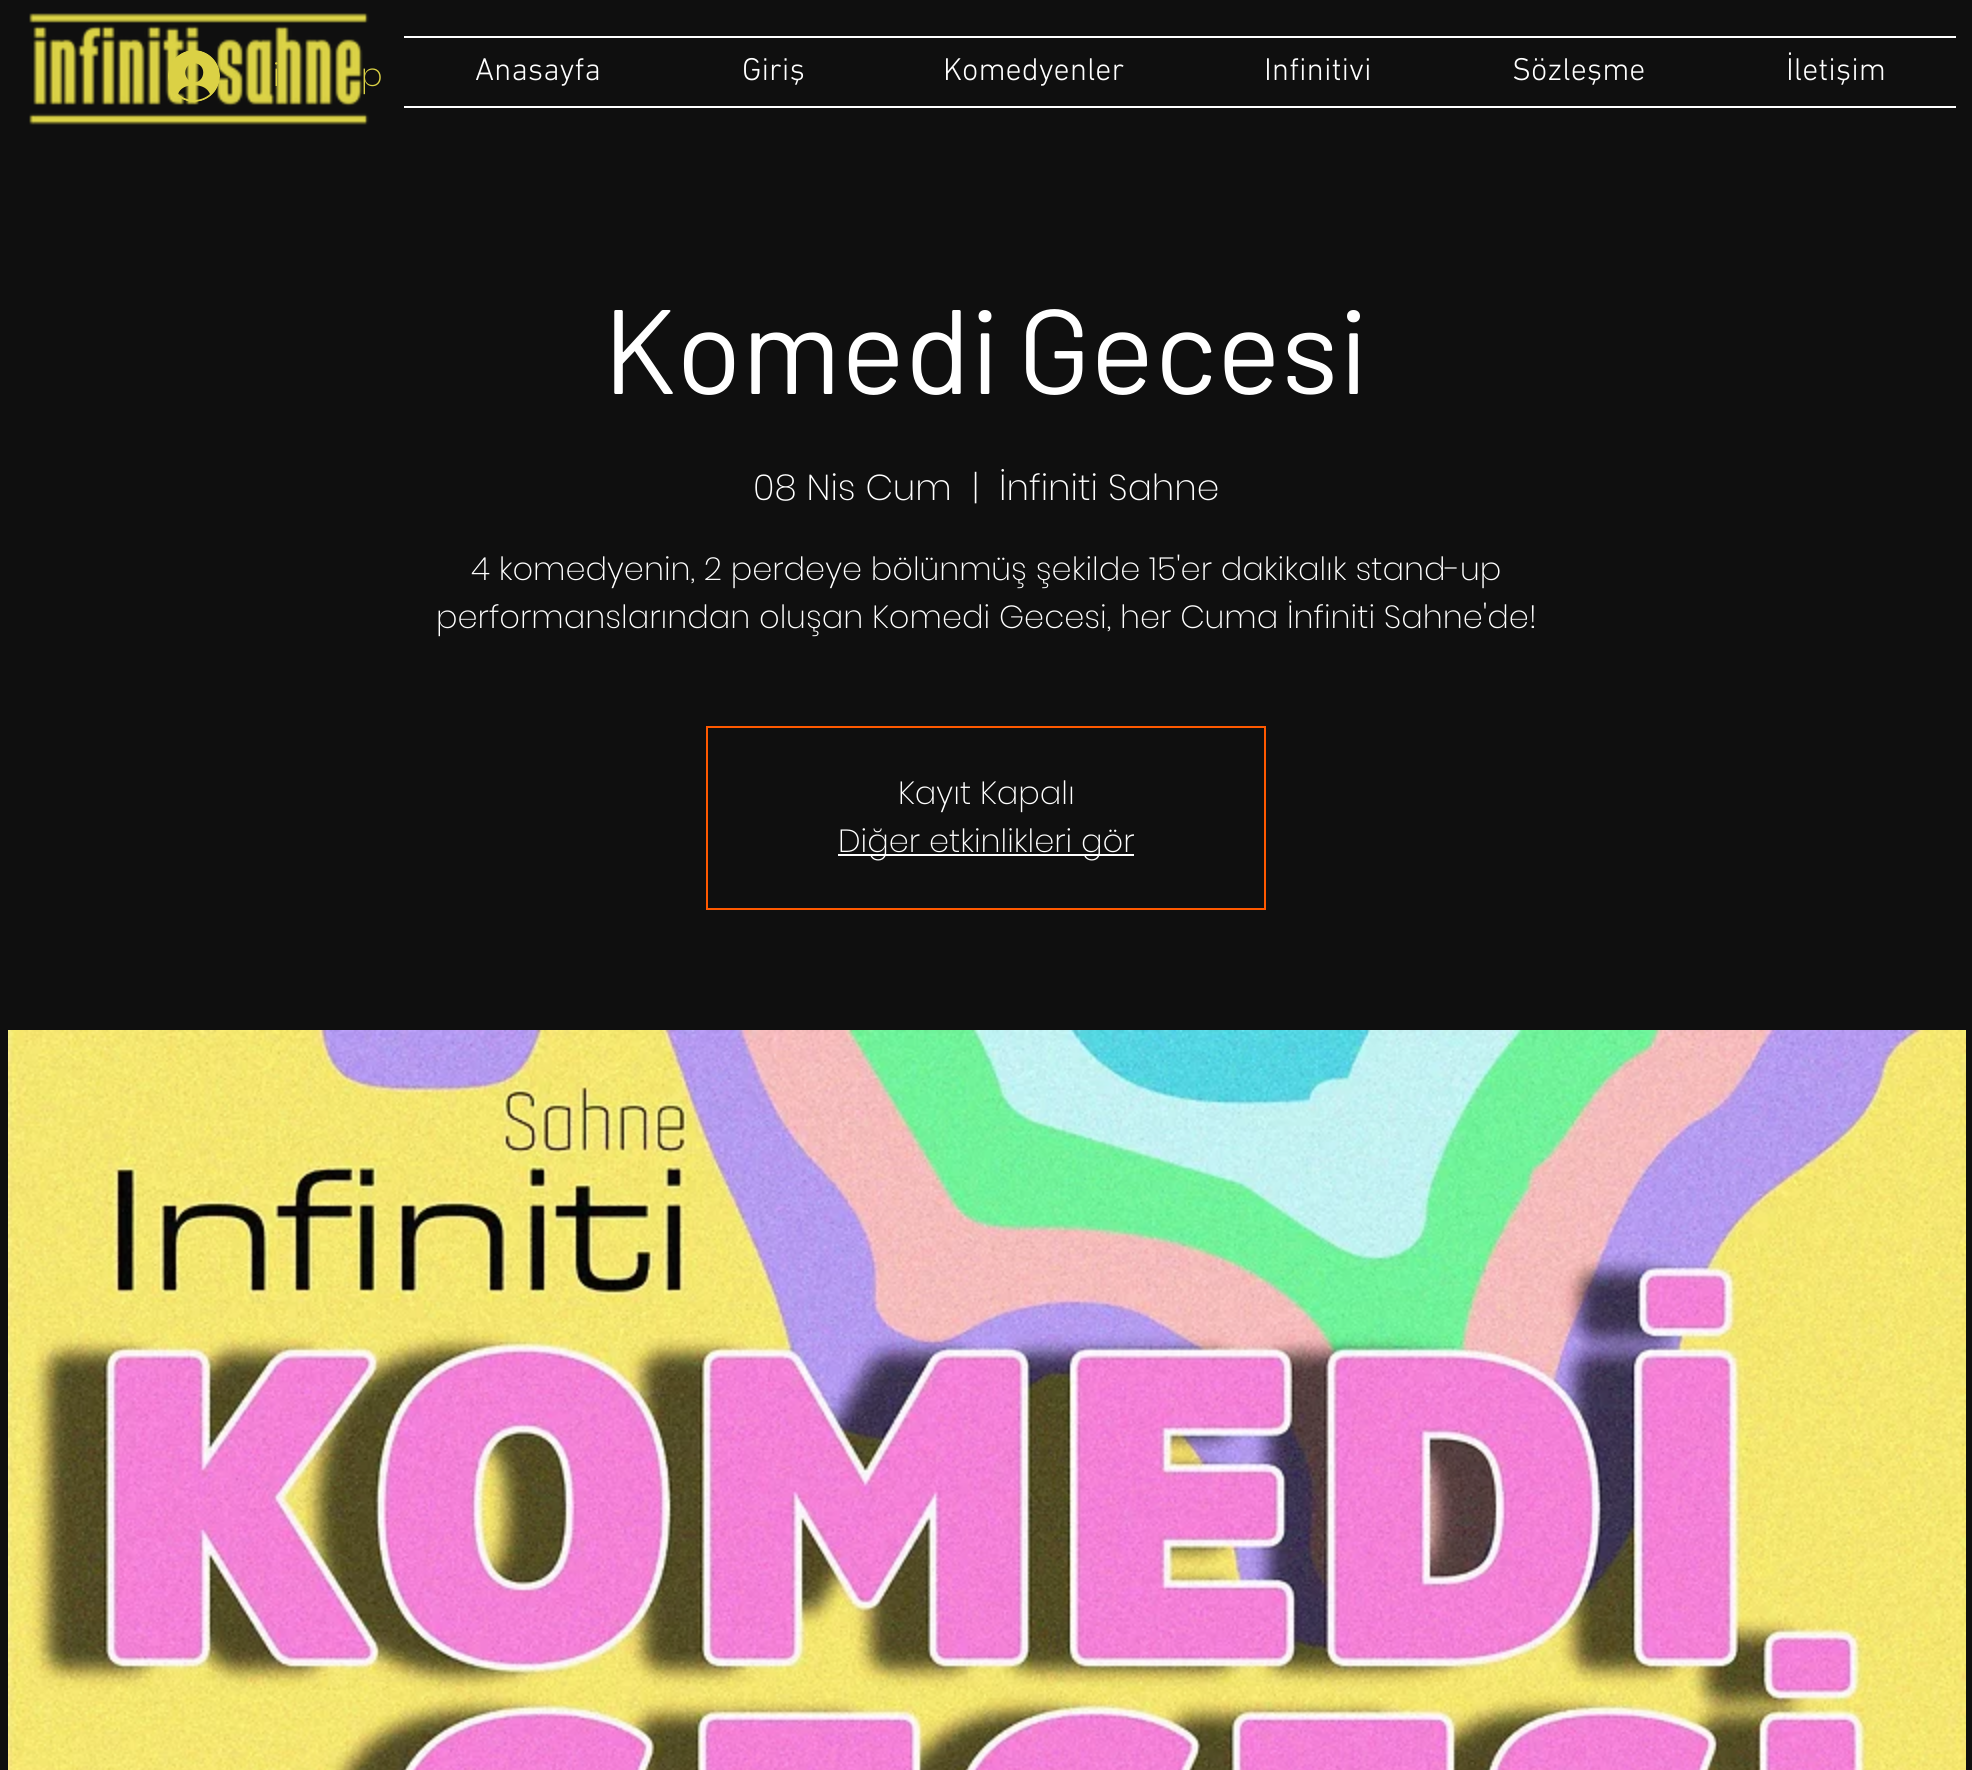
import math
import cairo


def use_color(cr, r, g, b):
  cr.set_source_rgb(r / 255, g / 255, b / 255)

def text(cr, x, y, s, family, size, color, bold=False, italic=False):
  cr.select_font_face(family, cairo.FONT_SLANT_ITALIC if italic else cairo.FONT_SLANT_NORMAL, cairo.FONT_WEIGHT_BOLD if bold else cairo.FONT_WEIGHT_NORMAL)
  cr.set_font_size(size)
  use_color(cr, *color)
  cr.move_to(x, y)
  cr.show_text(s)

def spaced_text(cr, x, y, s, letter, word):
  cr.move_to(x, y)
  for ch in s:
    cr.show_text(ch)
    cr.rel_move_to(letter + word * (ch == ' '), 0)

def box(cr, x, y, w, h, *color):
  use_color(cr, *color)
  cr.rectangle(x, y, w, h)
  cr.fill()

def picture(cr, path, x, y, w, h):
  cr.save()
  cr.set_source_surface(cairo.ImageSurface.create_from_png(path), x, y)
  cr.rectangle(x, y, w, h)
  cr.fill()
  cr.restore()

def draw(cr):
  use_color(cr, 15, 15, 15)
  cr.paint()
  picture(cr, "img_01.png", 29, 13, 340, 112)
  picture(cr, "img_02.png", 168, 50, 52, 52)
  box(cr, 404, 36, 1552, 2, 255, 255, 255)
  box(cr, 404, 106, 1552, 2, 255, 255, 255)
  cr.rectangle(707, 727, 558, 182)
  use_color(cr, 255, 89, 0)
  cr.stroke()
  box(cr, 838, 854, 296, 2, 255, 255, 255)
  picture(cr, "img_03.png", 8, 1030, 1958, 740)
  text(cr, 273, 86, "i", "Poppins ExtraLight", 32, (219, 209, 69))
  text(cr, 361, 86, "p", "Poppins ExtraLight", 32, (219, 209, 69))
  text(cr, 475, 80, "Anasayfa", "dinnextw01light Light", 32, (255, 255, 255))
  text(cr, 742, 80, "Giriş", "dinnextw01light Light", 32, (255, 255, 255))
  text(cr, 943, 80, "Komedyenler", "dinnextw01light Light", 32, (255, 255, 255))
  text(cr, 1264, 80, "Infinitivi", "dinnextw01light Light", 32, (255, 255, 255))
  text(cr, 1512, 80, "Sözleşme", "dinnextw01light Light", 32, (255, 255, 255))
  text(cr, 1786, 80, "İletişim", "dinnextw01light Light", 32, (255, 255, 255))
  cr.select_font_face("Barlow")
  cr.set_font_size(120)
  spaced_text(cr, 603, 394, "Komedi Gecesi", 0, -6)
  text(cr, 753, 500, "08 Nis Cum", "Poppins ExtraLight", 36, (255, 255, 255))
  text(cr, 972, 500, "|", "Poppins ExtraLight", 36, (255, 255, 255))
  text(cr, 999, 500, "İnfiniti Sahne", "Poppins ExtraLight", 36, (255, 255, 255))
  text(cr, 471, 580, "4 komedyenin, 2 perdeye bölünmüş şekilde 15'er dakikalık stand-up", "Poppins ExtraLight", 32, (255, 255, 255))
  text(cr, 436, 628, "performanslarından oluşan Komedi Gecesi, her Cuma İnfiniti Sahne'de!", "Poppins ExtraLight", 32, (255, 255, 255))
  text(cr, 898, 804, "Kayıt Kapalı", "Poppins ExtraLight", 32, (255, 255, 255))
  text(cr, 838, 852, "Diğer etkinlikleri gör", "Poppins ExtraLight", 32, (255, 255, 255))


surface = cairo.ImageSurface(cairo.FORMAT_RGB24, 1972, 1770)
cr = cairo.Context(surface)
options = cairo.FontOptions()
options.set_hint_metrics(cairo.HINT_METRICS_OFF)
options.set_hint_style(cairo.HINT_STYLE_NONE)
cr.set_font_options(options)
cr.set_miter_limit(4)
draw(cr)
surface.write_to_png("out.png")
